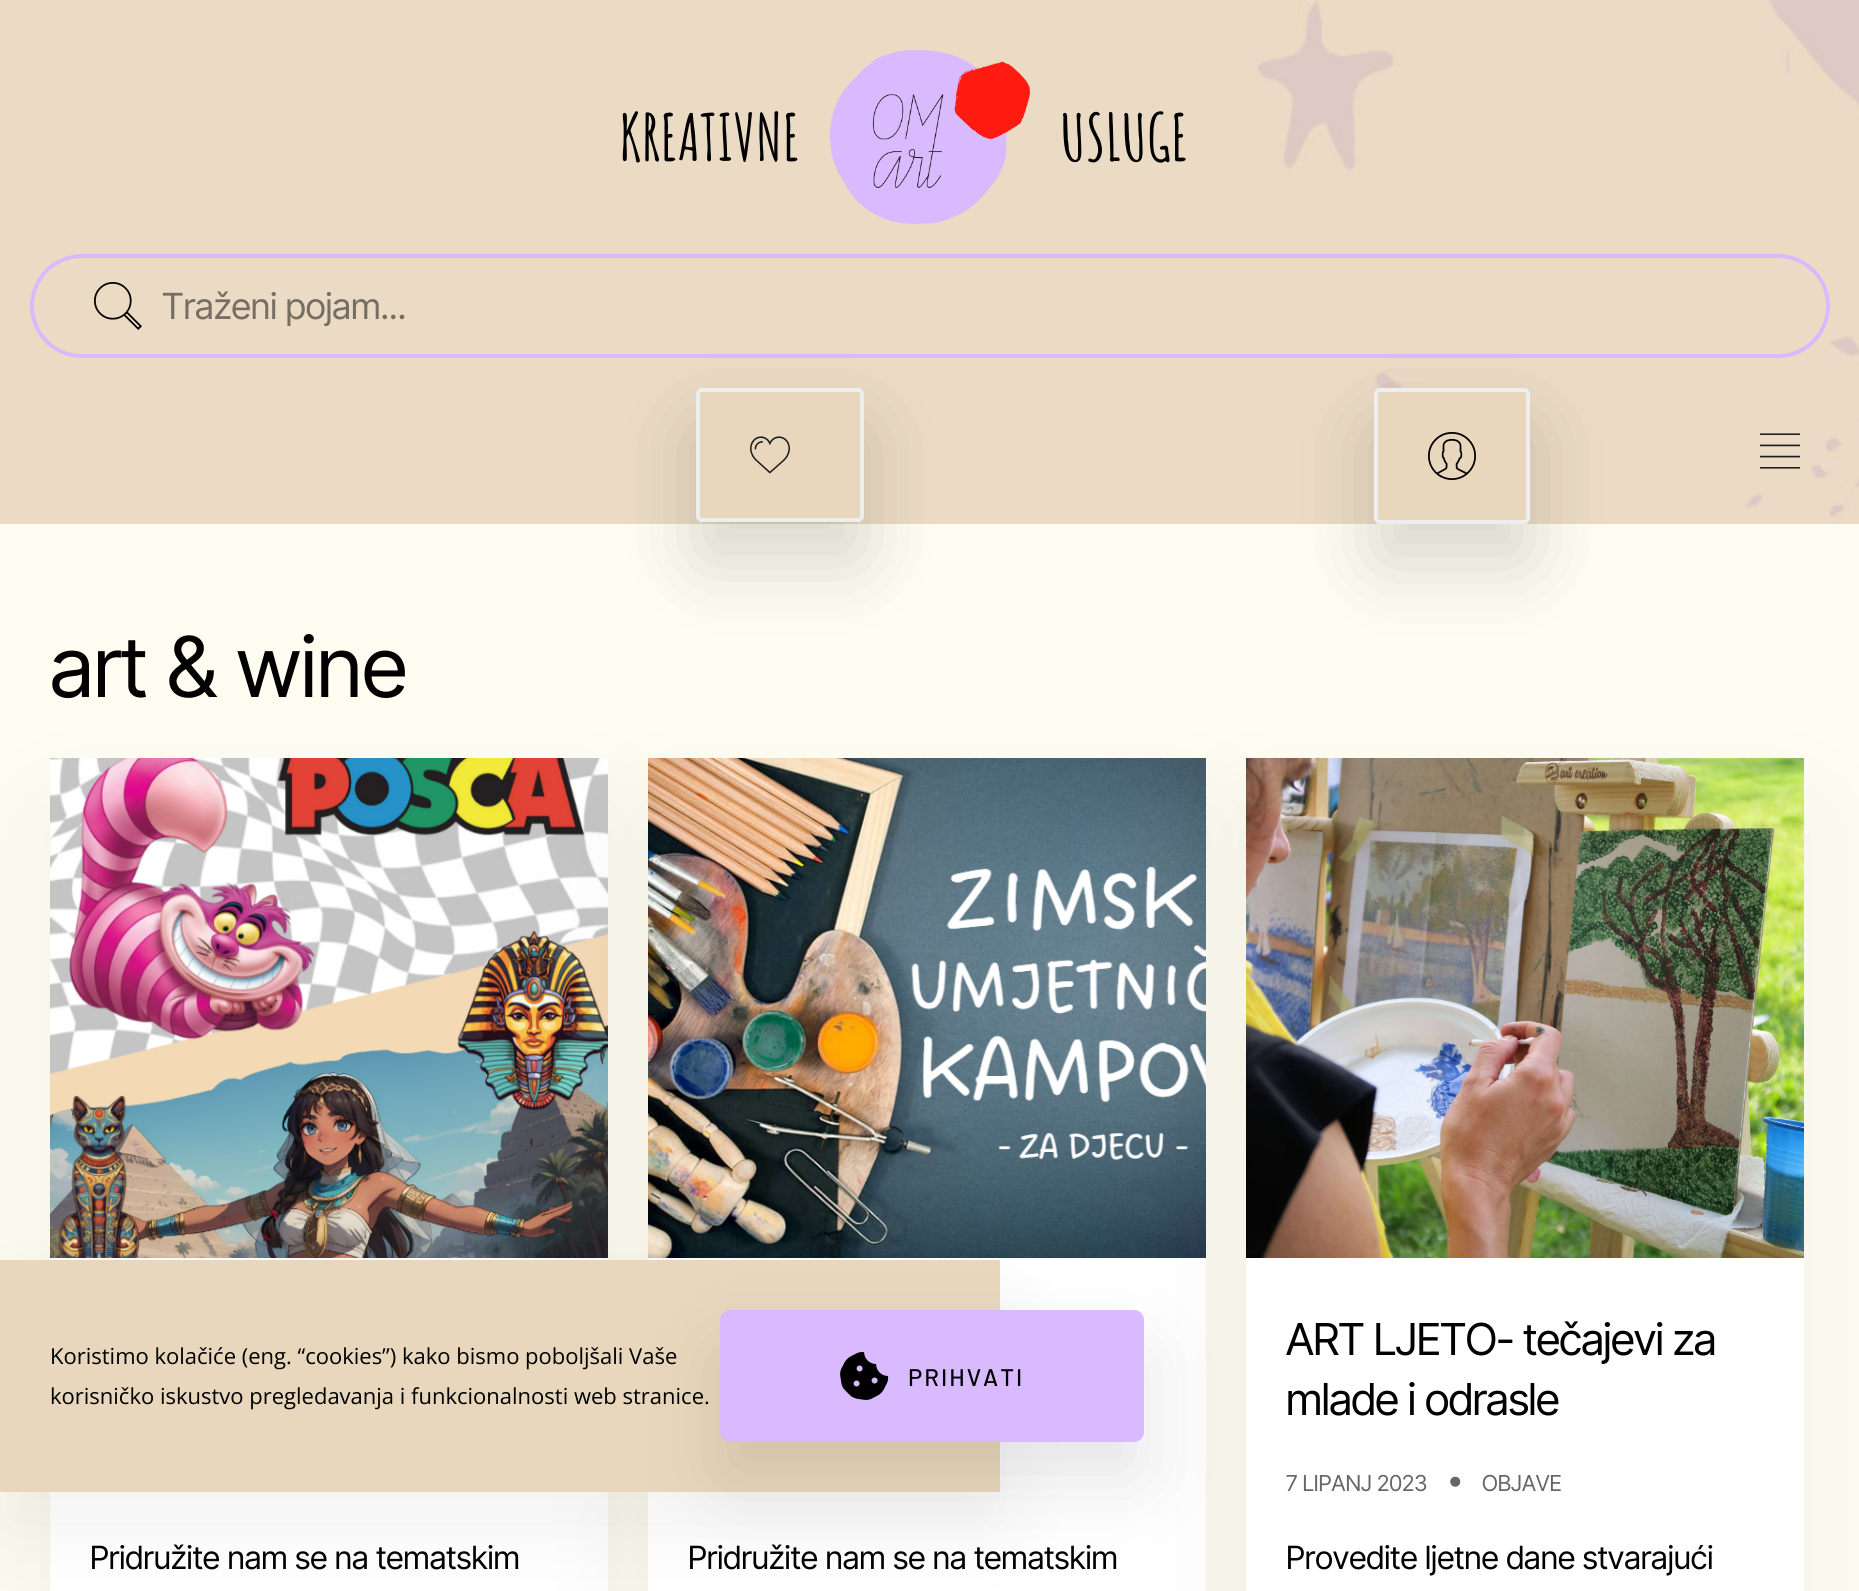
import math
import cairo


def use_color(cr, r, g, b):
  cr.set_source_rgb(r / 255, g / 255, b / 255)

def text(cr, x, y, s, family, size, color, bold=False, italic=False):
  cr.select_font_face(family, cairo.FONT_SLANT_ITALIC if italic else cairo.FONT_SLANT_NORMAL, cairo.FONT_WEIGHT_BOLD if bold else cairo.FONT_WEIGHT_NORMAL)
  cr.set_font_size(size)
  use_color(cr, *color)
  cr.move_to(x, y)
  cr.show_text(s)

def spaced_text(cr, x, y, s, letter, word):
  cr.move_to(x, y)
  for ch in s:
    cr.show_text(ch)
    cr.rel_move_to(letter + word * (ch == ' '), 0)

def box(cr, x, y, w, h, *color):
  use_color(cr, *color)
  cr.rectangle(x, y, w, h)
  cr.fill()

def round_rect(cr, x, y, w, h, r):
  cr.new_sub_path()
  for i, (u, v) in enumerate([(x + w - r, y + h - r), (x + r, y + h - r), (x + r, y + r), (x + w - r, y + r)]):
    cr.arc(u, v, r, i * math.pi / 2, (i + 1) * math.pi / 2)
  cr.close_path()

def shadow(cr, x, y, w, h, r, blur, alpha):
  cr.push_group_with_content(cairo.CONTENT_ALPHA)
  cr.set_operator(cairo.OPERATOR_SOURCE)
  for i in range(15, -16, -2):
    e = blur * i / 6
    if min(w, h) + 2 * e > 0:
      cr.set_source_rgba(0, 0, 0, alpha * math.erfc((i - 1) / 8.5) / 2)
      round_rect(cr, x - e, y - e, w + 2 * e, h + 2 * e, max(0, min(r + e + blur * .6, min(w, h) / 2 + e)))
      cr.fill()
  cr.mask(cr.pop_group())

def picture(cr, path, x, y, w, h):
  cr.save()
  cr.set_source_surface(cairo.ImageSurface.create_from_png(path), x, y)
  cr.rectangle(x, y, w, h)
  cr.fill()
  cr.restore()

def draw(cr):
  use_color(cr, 255, 252, 241)
  cr.paint()
  picture(cr, "img_01.png", 0, 0, 1859, 524)
  picture(cr, "img_02.png", 830, 50, 200, 174)
  round_rect(cr, 32, 256, 1796, 100, 50)
  use_color(cr, 217, 186, 254)
  cr.set_line_width(4)
  cr.stroke()
  picture(cr, "img_03.png", 94, 282, 48, 48)
  use_color(cr, 0, 0, 0)
  shadow(cr, 696, 428, 168, 134, 6, 40, 0.15)
  use_color(cr, 232, 215, 188)
  round_rect(cr, 698, 390, 164, 130, 4)
  cr.fill_preserve()
  use_color(cr, 238, 238, 238)
  cr.stroke()
  picture(cr, "img_04.png", 750, 436, 40, 38)
  use_color(cr, 0, 0, 0)
  shadow(cr, 1374, 428, 156, 136, 6, 40, 0.15)
  use_color(cr, 232, 215, 188)
  round_rect(cr, 1376, 390, 152, 132, 4)
  cr.fill_preserve()
  use_color(cr, 238, 238, 238)
  cr.stroke()
  picture(cr, "img_05.png", 1428, 432, 48, 48)
  picture(cr, "img_06.png", 1760, 433, 40, 36)
  use_color(cr, 0, 0, 0)
  shadow(cr, 50, 818, 558, 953, 0, 60, 0.05)
  box(cr, 50, 1258, 558, 333, 255, 255, 255)
  picture(cr, "img_07.png", 50, 758, 558, 500)
  use_color(cr, 0, 0, 0)
  shadow(cr, 648, 818, 558, 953, 0, 60, 0.05)
  box(cr, 648, 1258, 558, 333, 255, 255, 255)
  picture(cr, "img_08.png", 648, 758, 558, 500)
  use_color(cr, 0, 0, 0)
  shadow(cr, 1246, 818, 558, 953, 0, 60, 0.05)
  box(cr, 1246, 1258, 558, 333, 255, 255, 255)
  picture(cr, "img_09.png", 1246, 758, 558, 500)
  use_color(cr, 0, 0, 0)
  shadow(cr, 0, 1300, 1000, 232, 0, 40, 0.05)
  box(cr, 0, 1260, 1000, 232, 232, 215, 188)
  use_color(cr, 0, 0, 0)
  shadow(cr, 720, 1350, 424, 132, 10, 40, 0.1)
  use_color(cr, 217, 186, 254)
  round_rect(cr, 720, 1310, 424, 132, 10)
  cr.fill()
  picture(cr, "img_10.png", 840, 1352, 49, 48)
  text(cr, 619, 161, "KREATIVNE", "Amatic SC", 64, (0, 0, 0), bold=True)
  text(cr, 1060, 161, "USLUGE", "Amatic SC", 64, (0, 0, 0), bold=True)
  cr.save()
  cr.rectangle(162, 284, 1624, 42)
  cr.clip()
  text(cr, 162, 319, "Traženi pojam...", "Inter Tight", 36, (118, 110, 98))
  cr.restore()
  text(cr, 50, 697, "art & wine", "Inter Tight", 84, (0, 0, 0))
  text(cr, 90, 1569, "Pridružite nam se na tematskim", "Inter Tight", 32, (0, 0, 0))
  text(cr, 688, 1569, "Pridružite nam se na tematskim", "Inter Tight", 32, (0, 0, 0))
  cr.set_font_size(44)
  spaced_text(cr, 1286, 1355, "ART LJETO- tečajevi za", -0.7, 0)
  spaced_text(cr, 1286, 1415, "mlade i odrasle", -0.7, 0)
  text(cr, 1286, 1491, "7 LIPANJ 2023", "Inter Tight", 22, (102, 102, 102))
  text(cr, 1447, 1491, "•", "Inter Tight", 32, (102, 102, 102))
  text(cr, 1482, 1491, "OBJAVE", "Inter Tight", 22, (102, 102, 102))
  text(cr, 1286, 1569, "Provedite ljetne dane stvarajući", "Inter Tight", 32, (0, 0, 0))
  text(cr, 50, 1364, "Koristimo kolačiće (eng. “cookies”) kako bismo poboljšali Vaše", "Open Sans", 22, (0, 0, 0))
  text(cr, 50, 1404, "korisničko iskustvo pregledavanja i funkcionalnosti web stranice.", "Open Sans", 22, (0, 0, 0))
  cr.select_font_face("Barlow Medium")
  cr.set_font_size(24)
  spaced_text(cr, 908, 1386, "PRIHVATI", 2, 0)


surface = cairo.ImageSurface(cairo.FORMAT_RGB24, 1859, 1591)
cr = cairo.Context(surface)
options = cairo.FontOptions()
options.set_hint_metrics(cairo.HINT_METRICS_OFF)
options.set_hint_style(cairo.HINT_STYLE_NONE)
cr.set_font_options(options)
cr.set_miter_limit(4)
draw(cr)
surface.write_to_png("out.png")
